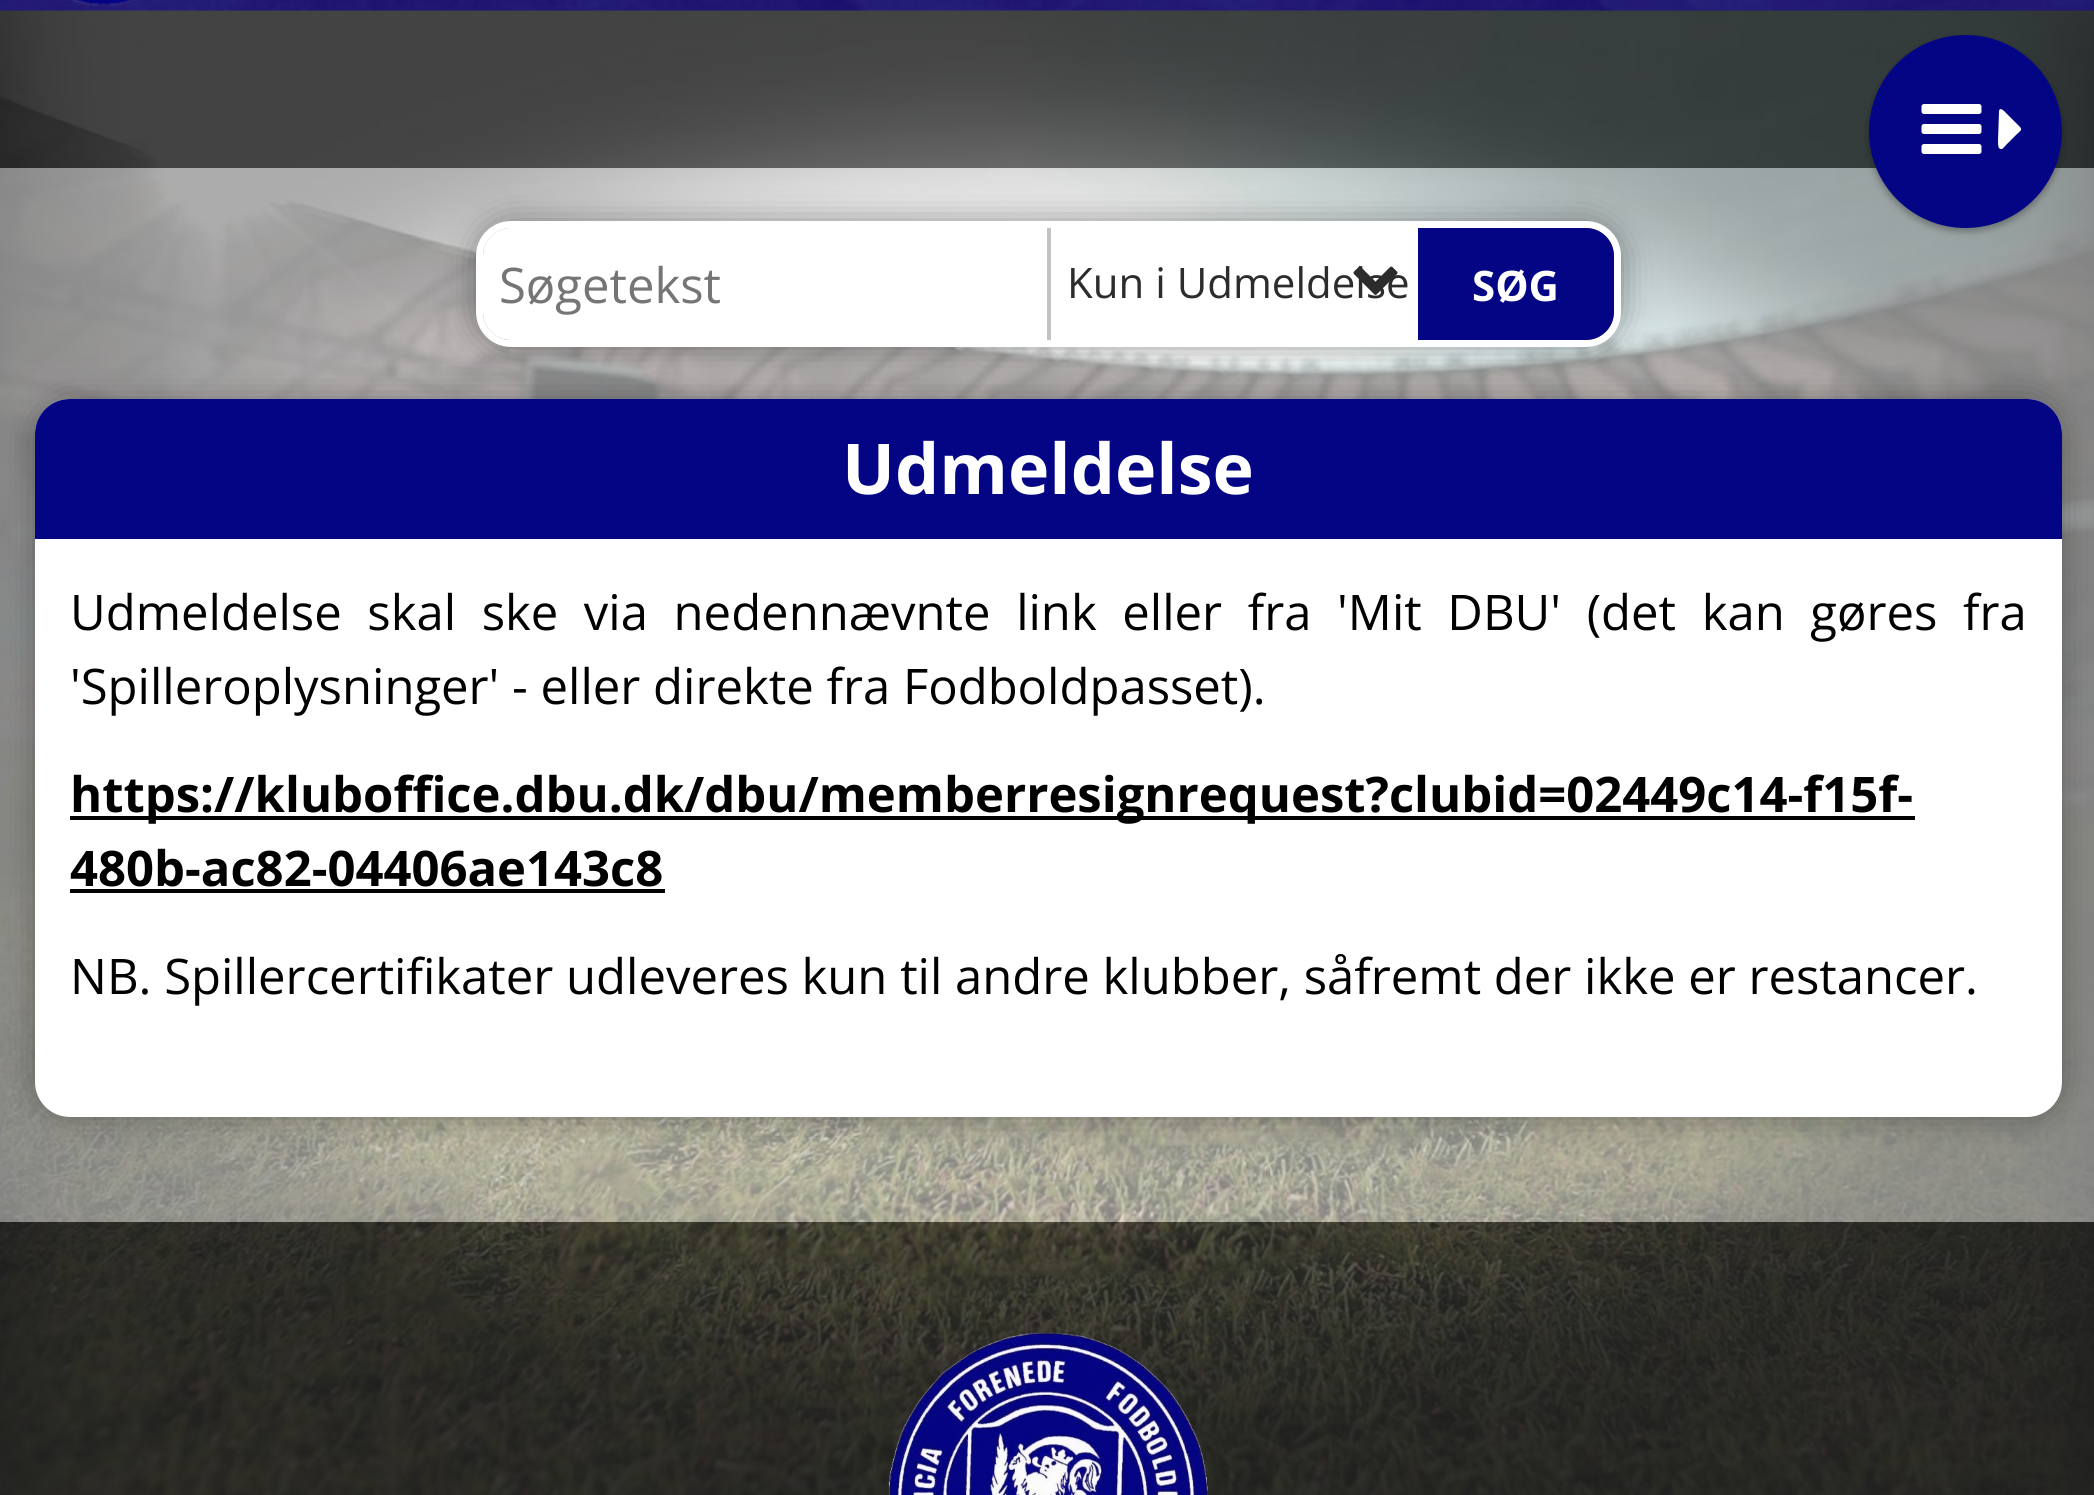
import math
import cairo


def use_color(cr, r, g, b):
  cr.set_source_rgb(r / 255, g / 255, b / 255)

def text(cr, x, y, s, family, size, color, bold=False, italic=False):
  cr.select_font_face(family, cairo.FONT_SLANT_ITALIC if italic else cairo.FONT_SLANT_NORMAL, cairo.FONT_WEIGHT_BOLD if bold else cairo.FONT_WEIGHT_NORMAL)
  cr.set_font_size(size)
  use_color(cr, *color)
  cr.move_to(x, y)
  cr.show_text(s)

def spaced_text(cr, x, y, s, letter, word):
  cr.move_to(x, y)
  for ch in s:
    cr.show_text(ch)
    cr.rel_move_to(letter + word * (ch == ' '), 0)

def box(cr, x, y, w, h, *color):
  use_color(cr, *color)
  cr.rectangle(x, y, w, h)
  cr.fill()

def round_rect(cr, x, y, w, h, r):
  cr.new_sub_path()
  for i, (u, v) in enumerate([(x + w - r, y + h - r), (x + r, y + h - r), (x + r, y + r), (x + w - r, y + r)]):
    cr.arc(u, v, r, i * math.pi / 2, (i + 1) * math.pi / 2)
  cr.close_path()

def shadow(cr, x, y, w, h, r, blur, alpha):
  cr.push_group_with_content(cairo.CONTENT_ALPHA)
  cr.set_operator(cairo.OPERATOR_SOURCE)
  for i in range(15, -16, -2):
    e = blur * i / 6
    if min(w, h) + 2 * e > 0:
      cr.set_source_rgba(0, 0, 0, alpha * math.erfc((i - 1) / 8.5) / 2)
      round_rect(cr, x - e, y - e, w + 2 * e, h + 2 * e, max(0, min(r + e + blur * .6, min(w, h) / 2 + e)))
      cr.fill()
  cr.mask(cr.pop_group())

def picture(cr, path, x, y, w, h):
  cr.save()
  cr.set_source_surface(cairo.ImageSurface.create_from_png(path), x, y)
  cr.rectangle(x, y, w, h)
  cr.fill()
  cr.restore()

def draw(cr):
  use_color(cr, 255, 255, 255)
  cr.paint()
  picture(cr, "img_01.png", 0, 10, 2094, 1485)
  cr.set_source_rgba(1, 1, 1, 0.5)
  cr.rectangle(0, 168, 2094, 1054)
  cr.fill()
  use_color(cr, 48, 48, 48)
  shadow(cr, 35, 399, 2027, 718, 35, 17.5, 0.5)
  use_color(cr, 255, 255, 255)
  round_rect(cr, 35, 399, 2027, 718, 35)
  cr.fill()
  use_color(cr, 4, 5, 133)
  cr.new_path()
  cr.move_to(70, 399)
  cr.line_to(2027, 399)
  cr.curve_to(2046.5, 399, 2062, 414.5, 2062, 434)
  cr.line_to(2062, 539)
  cr.line_to(35, 539)
  cr.line_to(35, 434)
  cr.curve_to(35, 414.5, 50.5, 399, 70, 399)
  cr.close_path()
  cr.fill()
  use_color(cr, 48, 48, 48)
  shadow(cr, 476, 221, 1145, 126, 35, 17.5, 0.5)
  cr.set_source_rgba(0.212, 0.212, 0.212, 0.6)
  cr.rectangle(0, 10, 2094, 158)
  cr.fill()
  picture(cr, "img_02.png", 0, 0, 2094, 11)
  use_color(cr, 0, 0, 0)
  shadow(cr, 1869, 39, 193, 192, 96, 3.5, 0.24)
  shadow(cr, 1869, 39, 193, 192, 96, 5, 0.12)
  use_color(cr, 4, 5, 133)
  cr.arc(1965.5, 131.5, 96.5, 0, 2 * math.pi)
  cr.fill()
  picture(cr, "img_03.png", 1921, 104, 61, 50)
  use_color(cr, 255, 255, 255)
  cr.new_path()
  cr.move_to(2020, 127)
  cr.curve_to(2023, 130, 2019, 132, 2017, 134)
  cr.line_to(2006, 145)
  cr.curve_to(2004, 147, 2002, 151, 1999, 148)
  cr.curve_to(1998, 147, 1998, 142, 1998, 141)
  cr.line_to(1999, 111)
  cr.curve_to(2000, 106, 2005, 112, 2006, 113)
  cr.close_path()
  cr.fill()
  round_rect(cr, 479.5, 224.5, 1138, 119, 31.5)
  cr.set_line_width(7)
  cr.stroke()
  cr.new_path()
  cr.move_to(511, 228)
  cr.line_to(1061, 228)
  cr.line_to(1061, 340)
  cr.line_to(511, 340)
  cr.curve_to(495.5, 340, 483, 327.5, 483, 312)
  cr.line_to(483, 256)
  cr.curve_to(483, 240.5, 495.5, 228, 511, 228)
  cr.close_path()
  cr.fill()
  box(cr, 1061, 228, 357, 112, 255, 255, 255)
  box(cr, 1047, 228, 4, 112, 194, 194, 194)
  use_color(cr, 4, 5, 133)
  cr.new_path()
  cr.move_to(1418, 228)
  cr.line_to(1586, 228)
  cr.curve_to(1601.5, 228, 1614, 240.5, 1614, 256)
  cr.line_to(1614, 312)
  cr.curve_to(1614, 327.5, 1601.5, 340, 1586, 340)
  cr.line_to(1418, 340)
  cr.close_path()
  cr.fill()
  box(cr, 70, 816, 1845, 4, 0, 0, 0)
  box(cr, 70, 889, 595, 4, 0, 0, 0)
  cr.set_source_rgba(0.2, 0.2, 0.2, 0.6)
  cr.rectangle(0, 1222, 2094, 273)
  cr.fill()
  picture(cr, "img_05.png", 888, 1332, 320, 163)
  text(cr, 499, 303, "Søgetekst", "Open Sans", 49, (117, 117, 117))
  text(cr, 1067, 298, "Kun i Udmeldelse", "Open Sans", 42, (44, 44, 44))
  picture(cr, "img_04.png", 1353, 266, 45, 29)
  text(cr, 1472, 301, "SØG", "Open Sans", 42, (255, 255, 255), bold=True)
  text(cr, 842, 494, "Udmeldelse", "Open Sans", 70, (255, 255, 255), bold=True)
  cr.select_font_face("Open Sans")
  cr.set_font_size(49)
  use_color(cr, 0, 0, 0)
  spaced_text(cr, 70, 630, "Udmeldelse skal ske via nedennævnte link eller fra 'Mit DBU' (det kan gøres fra", 0, 12.9)
  text(cr, 70, 704, "'Spilleroplysninger' - eller direkte fra Fodboldpasset).", "Open Sans", 49, (0, 0, 0))
  text(cr, 70, 812, "https://kluboffice.dbu.dk/dbu/memberresignrequest?clubid=02449c14-f15f-", "Open Sans", 49, (0, 0, 0), bold=True)
  text(cr, 70, 886, "480b-ac82-04406ae143c8", "Open Sans", 49, (0, 0, 0), bold=True)
  text(cr, 70, 994, "NB. Spillercertifikater udleveres kun til andre klubber, såfremt der ikke er restancer.", "Open Sans", 49, (0, 0, 0))


surface = cairo.ImageSurface(cairo.FORMAT_RGB24, 2094, 1495)
cr = cairo.Context(surface)
options = cairo.FontOptions()
options.set_hint_metrics(cairo.HINT_METRICS_OFF)
options.set_hint_style(cairo.HINT_STYLE_NONE)
cr.set_font_options(options)
cr.set_miter_limit(4)
draw(cr)
surface.write_to_png("out.png")
